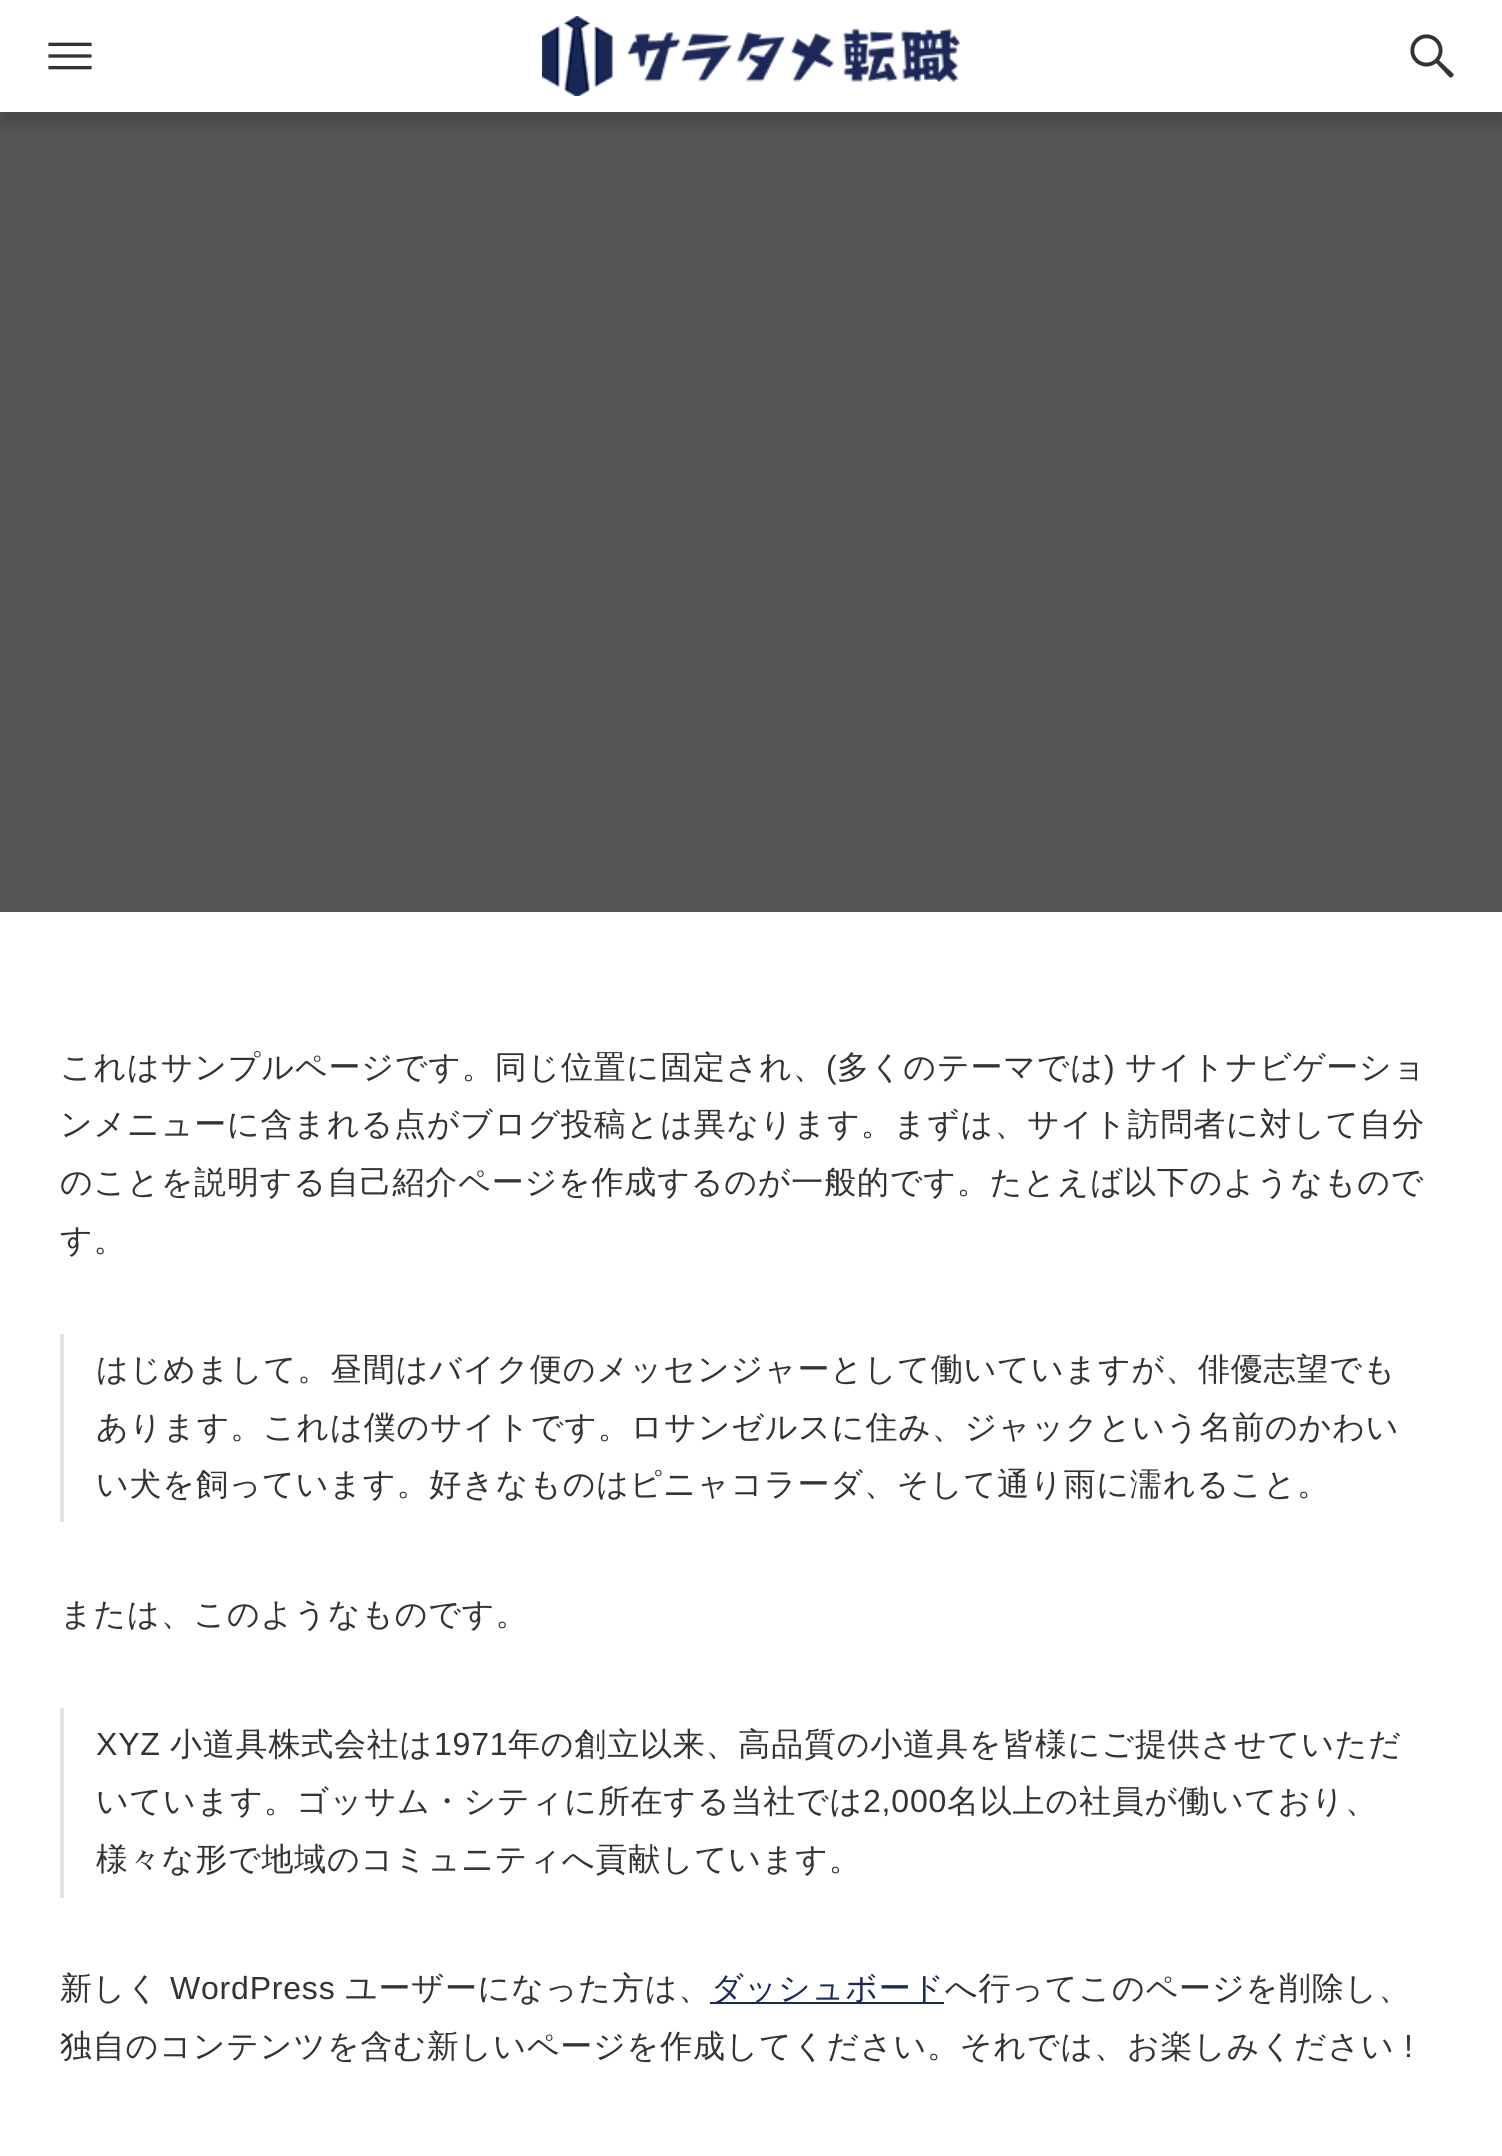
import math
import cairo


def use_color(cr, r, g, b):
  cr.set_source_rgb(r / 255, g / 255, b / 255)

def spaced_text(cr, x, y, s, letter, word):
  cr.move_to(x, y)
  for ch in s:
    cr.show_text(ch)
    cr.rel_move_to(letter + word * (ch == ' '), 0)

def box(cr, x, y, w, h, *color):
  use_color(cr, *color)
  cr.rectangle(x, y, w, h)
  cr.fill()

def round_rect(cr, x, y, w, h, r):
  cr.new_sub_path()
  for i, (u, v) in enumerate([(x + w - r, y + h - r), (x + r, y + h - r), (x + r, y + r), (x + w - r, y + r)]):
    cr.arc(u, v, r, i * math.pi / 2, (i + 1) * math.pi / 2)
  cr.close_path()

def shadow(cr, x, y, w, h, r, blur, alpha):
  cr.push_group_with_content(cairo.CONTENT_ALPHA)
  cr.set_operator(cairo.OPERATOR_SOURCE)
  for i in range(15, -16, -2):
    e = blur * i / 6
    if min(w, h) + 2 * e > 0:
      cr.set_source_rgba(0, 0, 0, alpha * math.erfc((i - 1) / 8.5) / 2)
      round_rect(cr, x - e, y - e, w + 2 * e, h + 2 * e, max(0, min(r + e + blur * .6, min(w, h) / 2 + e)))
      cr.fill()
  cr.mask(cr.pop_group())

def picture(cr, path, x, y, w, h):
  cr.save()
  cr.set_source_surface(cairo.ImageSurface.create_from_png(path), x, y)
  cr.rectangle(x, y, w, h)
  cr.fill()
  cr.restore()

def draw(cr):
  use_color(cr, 255, 255, 255)
  cr.paint()
  box(cr, 0, 112, 1502, 800, 85, 85, 85)
  cr.save()
  cr.rectangle(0, 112, 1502, 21)
  cr.clip()
  use_color(cr, 0, 0, 0)
  shadow(cr, 0, 12, 1502, 112, 0, 8, 0.16)
  cr.restore()
  picture(cr, "img_01.png", 48, 42, 44, 28)
  picture(cr, "img_02.png", 542, 16, 418, 80)
  picture(cr, "img_03.png", 1410, 34, 44, 44)
  box(cr, 60, 1334, 4, 188, 227, 227, 227)
  box(cr, 60, 1708, 4, 190, 227, 227, 227)
  box(cr, 710, 2002, 234, 2, 28, 40, 86)
  cr.select_font_face("WenQuanYi Zen Hei Medium")
  cr.set_font_size(32)
  use_color(cr, 51, 51, 51)
  spaced_text(cr, 60, 1078, "これはサンプルページです。同じ位置に固定され、", 0.8, 0)
  cr.select_font_face("Liberation Sans")
  spaced_text(cr, 826, 1078, "(", 0.8, 0)
  cr.select_font_face("WenQuanYi Zen Hei Medium")
  spaced_text(cr, 837, 1078, "多くのテーマでは", 0.8, 0)
  cr.select_font_face("Liberation Sans")
  spaced_text(cr, 1104, 1078, ")", 0.8, 0)
  cr.select_font_face("WenQuanYi Zen Hei Medium")
  spaced_text(cr, 1125, 1078, "サイトナビゲーショ", 0.8, 0)
  spaced_text(cr, 60, 1135, "ンメニューに含まれる点がブログ投稿とは異なります。まずは、サイト訪問者に対して自分", 0.8, 0)
  spaced_text(cr, 60, 1193, "のことを説明する自己紹介ページを作成するのが一般的です。たとえば以下のようなもので", 0.8, 0)
  spaced_text(cr, 60, 1251, "す。", 0.8, 0)
  spaced_text(cr, 96, 1380, "はじめまして。昼間はバイク便のメッセンジャーとして働いていますが、俳優志望でも", 0.8, 0)
  spaced_text(cr, 96, 1438, "あります。これは僕のサイトです。ロサンゼルスに住み、ジャックという名前のかわい", 0.8, 0)
  spaced_text(cr, 96, 1495, "い犬を飼っています。好きなものはピニャコラーダ、そして通り雨に濡れること。", 0.8, 0)
  spaced_text(cr, 60, 1625, "または、このようなものです。", 0.8, 0)
  cr.select_font_face("Liberation Sans")
  spaced_text(cr, 96, 1755, "XYZ", 0.8, 0)
  cr.select_font_face("WenQuanYi Zen Hei Medium")
  spaced_text(cr, 170, 1755, "小道具株式会社は", 0.8, 0)
  cr.select_font_face("Liberation Sans")
  spaced_text(cr, 434, 1755, "1971", 0.8, 0)
  cr.select_font_face("WenQuanYi Zen Hei Medium")
  spaced_text(cr, 508, 1755, "年の創立以来、高品質の小道具を皆様にご提供させていただ", 0.8, 0)
  spaced_text(cr, 96, 1812, "いています。ゴッサム・シティに所在する当社では", 0.8, 0)
  cr.select_font_face("Liberation Sans")
  spaced_text(cr, 863, 1812, "2,000", 0.8, 0)
  cr.select_font_face("WenQuanYi Zen Hei Medium")
  spaced_text(cr, 947, 1812, "名以上の社員が働いており、", 0.8, 0)
  spaced_text(cr, 96, 1870, "様々な形で地域のコミュニティへ貢献しています。", 0.8, 0)
  spaced_text(cr, 60, 1999, "新しく", 0.8, 0)
  cr.select_font_face("Liberation Sans")
  spaced_text(cr, 170, 1999, "WordPress", 0.8, 0)
  cr.select_font_face("WenQuanYi Zen Hei Medium")
  spaced_text(cr, 345, 1999, "ユーザーになった方は、", 0.8, 0)
  use_color(cr, 28, 40, 86)
  spaced_text(cr, 711, 1999, "ダッシュボード", 0.8, 0)
  use_color(cr, 51, 51, 51)
  spaced_text(cr, 945, 1999, "へ行ってこのページを削除し、", 0.8, 0)
  spaced_text(cr, 60, 2057, "独自のコンテンツを含む新しいページを作成してください。それでは、お楽しみください", 0.8, 0)
  cr.select_font_face("Liberation Sans")
  spaced_text(cr, 1404, 2057, "!", 0.8, 0)


surface = cairo.ImageSurface(cairo.FORMAT_RGB24, 1502, 2156)
cr = cairo.Context(surface)
options = cairo.FontOptions()
options.set_hint_metrics(cairo.HINT_METRICS_OFF)
options.set_hint_style(cairo.HINT_STYLE_NONE)
cr.set_font_options(options)
cr.set_miter_limit(4)
draw(cr)
surface.write_to_png("out.png")
